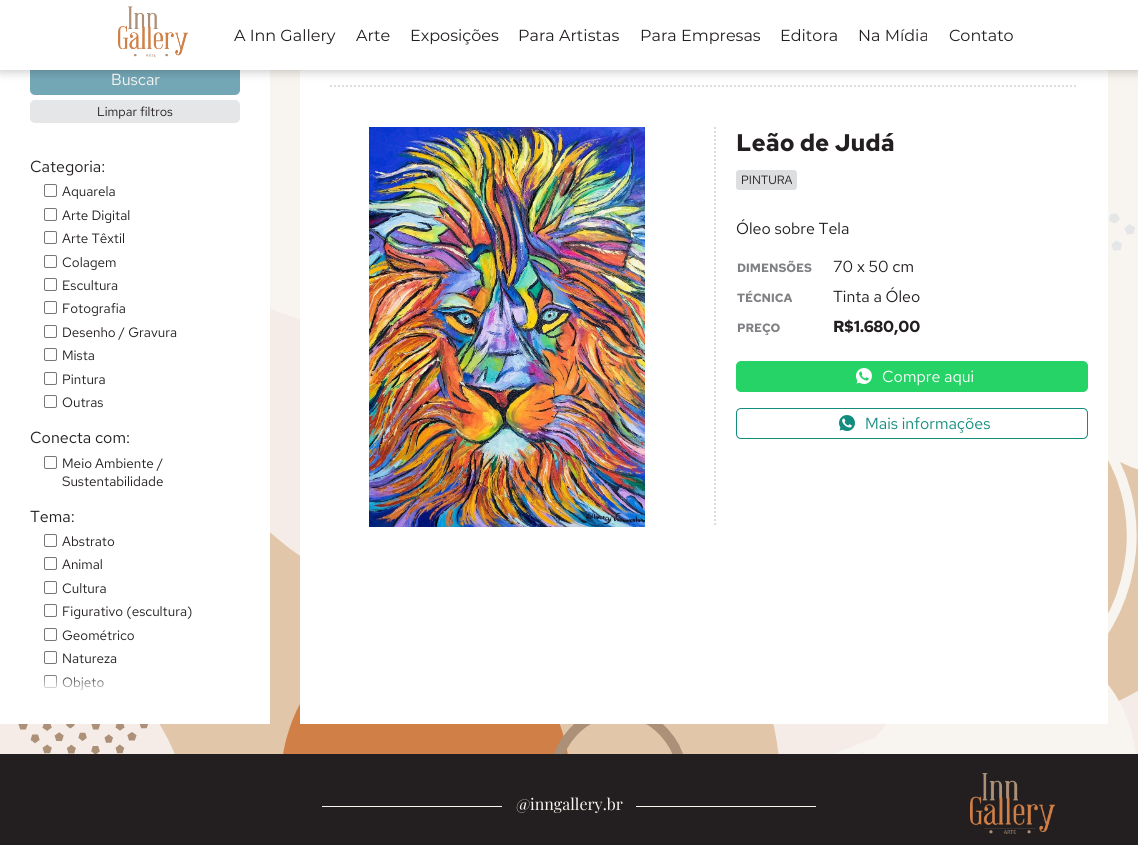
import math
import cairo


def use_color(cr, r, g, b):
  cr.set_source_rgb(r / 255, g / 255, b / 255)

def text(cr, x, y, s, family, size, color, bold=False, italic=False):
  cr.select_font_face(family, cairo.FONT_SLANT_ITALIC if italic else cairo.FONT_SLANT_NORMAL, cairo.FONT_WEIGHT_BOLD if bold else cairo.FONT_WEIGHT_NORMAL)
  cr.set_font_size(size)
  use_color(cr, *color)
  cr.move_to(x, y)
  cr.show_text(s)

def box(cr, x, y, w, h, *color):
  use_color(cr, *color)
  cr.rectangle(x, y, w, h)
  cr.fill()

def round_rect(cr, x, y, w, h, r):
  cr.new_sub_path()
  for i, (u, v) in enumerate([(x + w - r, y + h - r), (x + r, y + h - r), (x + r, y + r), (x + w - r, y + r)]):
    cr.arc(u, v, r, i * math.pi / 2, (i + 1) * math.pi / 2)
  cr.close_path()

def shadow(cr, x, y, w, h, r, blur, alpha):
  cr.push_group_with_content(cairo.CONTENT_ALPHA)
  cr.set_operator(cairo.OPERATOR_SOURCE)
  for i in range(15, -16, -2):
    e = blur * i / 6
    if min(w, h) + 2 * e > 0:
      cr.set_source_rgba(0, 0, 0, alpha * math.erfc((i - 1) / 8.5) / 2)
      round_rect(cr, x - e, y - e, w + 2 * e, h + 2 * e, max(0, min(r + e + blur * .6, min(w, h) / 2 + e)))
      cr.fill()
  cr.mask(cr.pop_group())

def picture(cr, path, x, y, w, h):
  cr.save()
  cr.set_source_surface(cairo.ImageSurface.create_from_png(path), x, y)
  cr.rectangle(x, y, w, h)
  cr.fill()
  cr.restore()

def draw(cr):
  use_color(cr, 255, 255, 255)
  cr.paint()
  picture(cr, "img_02.png", 0, 70, 1138, 684)
  box(cr, 0, 70, 270, 654, 255, 255, 255)
  use_color(cr, 116, 167, 182)
  round_rect(cr, 30, 64, 210, 31, 5)
  cr.fill()
  box(cr, 300, 70, 808, 654, 255, 255, 255)
  cr.new_path()
  cr.move_to(330, 86)
  cr.line_to(1078, 86)
  use_color(cr, 221, 222, 223)
  cr.set_dash([2, 2])
  cr.stroke()
  use_color(cr, 0, 0, 0)
  shadow(cr, 0, 2, 1138, 70, 0, 5, 0.21)
  box(cr, 0, 0, 1138, 70, 255, 255, 255)
  picture(cr, "img_01.png", 118, 6, 70, 51)
  use_color(cr, 229, 230, 231)
  round_rect(cr, 30, 100, 210, 23, 5)
  cr.fill()
  round_rect(cr, 44.5, 184.5, 12, 12, 1.5)
  use_color(cr, 118, 118, 118)
  cr.set_line_width(1)
  cr.set_dash([])
  cr.stroke()
  round_rect(cr, 44.5, 208.5, 12, 12, 1.5)
  cr.stroke()
  round_rect(cr, 44.5, 231.5, 12, 12, 1.5)
  cr.stroke()
  round_rect(cr, 44.5, 255.5, 12, 12, 1.5)
  cr.stroke()
  round_rect(cr, 44.5, 278.5, 12, 12, 1.5)
  cr.stroke()
  round_rect(cr, 44.5, 301.5, 12, 12, 1.5)
  cr.stroke()
  round_rect(cr, 44.5, 325.5, 12, 12, 1.5)
  cr.stroke()
  round_rect(cr, 44.5, 348.5, 12, 12, 1.5)
  cr.stroke()
  round_rect(cr, 44.5, 372.5, 12, 12, 1.5)
  cr.stroke()
  round_rect(cr, 44.5, 395.5, 12, 12, 1.5)
  cr.stroke()
  round_rect(cr, 44.5, 456.5, 12, 12, 1.5)
  cr.stroke()
  round_rect(cr, 44.5, 534.5, 12, 12, 1.5)
  cr.stroke()
  round_rect(cr, 44.5, 557.5, 12, 12, 1.5)
  cr.stroke()
  round_rect(cr, 44.5, 581.5, 12, 12, 1.5)
  cr.stroke()
  round_rect(cr, 44.5, 604.5, 12, 12, 1.5)
  cr.stroke()
  round_rect(cr, 44.5, 628.5, 12, 12, 1.5)
  cr.stroke()
  round_rect(cr, 44.5, 651.5, 12, 12, 1.5)
  cr.stroke()
  round_rect(cr, 44.5, 675.5, 12, 12, 1.5)
  cr.stroke()
  picture(cr, "img_03.png", 369, 127, 276, 400)
  cr.new_path()
  cr.move_to(715, 127)
  cr.line_to(715, 527)
  use_color(cr, 221, 222, 223)
  cr.set_line_width(2)
  cr.set_dash([2, 2])
  cr.stroke()
  round_rect(cr, 736, 170, 61, 20, 3)
  cr.fill()
  use_color(cr, 37, 211, 102)
  round_rect(cr, 736.5, 361.5, 351, 30, 4.5)
  cr.fill_preserve()
  cr.set_line_width(1)
  cr.set_dash([])
  cr.stroke()
  picture(cr, "img_04.png", 856, 368, 16, 16)
  round_rect(cr, 736.5, 408.5, 351, 30, 4.5)
  use_color(cr, 18, 140, 126)
  cr.stroke()
  picture(cr, "img_05.png", 839, 415, 16, 16)
  box(cr, 0, 754, 1138, 91, 35, 31, 32)
  box(cr, 322, 806, 180, 1, 248, 244, 239)
  box(cr, 636, 806, 180, 1, 248, 244, 239)
  picture(cr, "img_06.png", 970, 773, 85, 61)
  text(cr, 234, 41, "A Inn Gallery", "Montserrat", 16, (35, 31, 32))
  text(cr, 356, 41, "Arte", "Montserrat", 16, (35, 31, 32))
  text(cr, 410, 41, "Exposições", "Montserrat", 16, (35, 31, 32))
  text(cr, 518, 41, "Para Artistas", "Montserrat", 16, (35, 31, 32))
  text(cr, 640, 41, "Para Empresas", "Montserrat", 16, (35, 31, 32))
  text(cr, 780, 41, "Editora", "Montserrat", 16, (35, 31, 32))
  text(cr, 858, 41, "Na Mídia", "Montserrat", 16, (35, 31, 32))
  text(cr, 949, 41, "Contato", "Montserrat", 16, (35, 31, 32))
  text(cr, 111, 85, "Buscar", "Red Hat Text", 16, (248, 244, 239))
  text(cr, 97, 116, "Limpar filtros", "Red Hat Text", 12.75, (35, 31, 32))
  text(cr, 30, 172, "Categoria:", "Red Hat Text", 16, (35, 31, 32))
  text(cr, 62, 196, "Aquarela", "Red Hat Text", 13.5, (35, 31, 32))
  text(cr, 62, 220, "Arte Digital", "Red Hat Text", 13.5, (35, 31, 32))
  text(cr, 62, 243, "Arte Têxtil", "Red Hat Text", 13.5, (35, 31, 32))
  text(cr, 62, 267, "Colagem", "Red Hat Text", 13.5, (35, 31, 32))
  text(cr, 62, 290, "Escultura", "Red Hat Text", 13.5, (35, 31, 32))
  text(cr, 62, 313, "Fotografia", "Red Hat Text", 13.5, (35, 31, 32))
  text(cr, 62, 337, "Desenho / Gravura", "Red Hat Text", 13.5, (35, 31, 32))
  text(cr, 62, 360, "Mista", "Red Hat Text", 13.5, (35, 31, 32))
  text(cr, 62, 384, "Pintura", "Red Hat Text", 13.5, (35, 31, 32))
  text(cr, 62, 407, "Outras", "Red Hat Text", 13.5, (35, 31, 32))
  text(cr, 30, 443, "Conecta com:", "Red Hat Text", 16, (35, 31, 32))
  text(cr, 62, 468, "Meio Ambiente /", "Red Hat Text", 13.5, (35, 31, 32))
  text(cr, 62, 486, "Sustentabilidade", "Red Hat Text", 13.5, (35, 31, 32))
  text(cr, 30, 522, "Tema:", "Red Hat Text", 16, (35, 31, 32))
  text(cr, 62, 546, "Abstrato", "Red Hat Text", 13.5, (35, 31, 32))
  text(cr, 62, 569, "Animal", "Red Hat Text", 13.5, (35, 31, 32))
  text(cr, 62, 593, "Cultura", "Red Hat Text", 13.5, (35, 31, 32))
  text(cr, 62, 616, "Figurativo (escultura)", "Red Hat Text", 13.5, (35, 31, 32))
  text(cr, 62, 640, "Geométrico", "Red Hat Text", 13.5, (35, 31, 32))
  text(cr, 62, 663, "Natureza", "Red Hat Text", 13.5, (35, 31, 32))
  text(cr, 62, 687, "Objeto", "Red Hat Text", 13.5, (35, 31, 32))
  gradient = cairo.LinearGradient(135, 674, 135, 694)
  gradient.add_color_stop_rgba(0, 1, 1, 1, 0)
  gradient.add_color_stop_rgba(1, 1, 1, 1, 1)
  cr.set_source(gradient)
  cr.rectangle(44, 675, 60, 15)
  cr.fill()
  text(cr, 736, 151, "Leão de Judá", "Red Hat Text", 24, (35, 31, 32), bold=True)
  text(cr, 741, 184, "PINTURA", "Red Hat Text", 12, (35, 31, 32))
  text(cr, 736, 234, "Óleo sobre Tela", "Red Hat Text", 16, (35, 31, 32))
  text(cr, 737, 272, "DIMENSÕES", "Red Hat Text", 12, (128, 129, 132), bold=True)
  text(cr, 833, 272, "70 x 50 cm", "Red Hat Text", 16, (35, 31, 32))
  text(cr, 737, 302, "TÉCNICA", "Red Hat Text", 12, (128, 129, 132), bold=True)
  text(cr, 833, 302, "Tinta a Óleo", "Red Hat Text", 16, (35, 31, 32))
  text(cr, 737, 332, "PREÇO", "Red Hat Text", 12, (128, 129, 132), bold=True)
  text(cr, 833, 332, "R$1.680,00", "Red Hat Text", 16, (35, 31, 32), bold=True)
  text(cr, 882, 382, "Compre aqui", "Red Hat Text", 16, (255, 255, 255))
  text(cr, 865, 429, "Mais informações", "Red Hat Text", 16, (18, 140, 126))
  text(cr, 516, 810, "@inngallery.br", "Playfair Display", 16, (248, 244, 239))


surface = cairo.ImageSurface(cairo.FORMAT_RGB24, 1138, 845)
cr = cairo.Context(surface)
options = cairo.FontOptions()
options.set_hint_metrics(cairo.HINT_METRICS_OFF)
options.set_hint_style(cairo.HINT_STYLE_NONE)
cr.set_font_options(options)
cr.set_miter_limit(4)
draw(cr)
surface.write_to_png("out.png")
